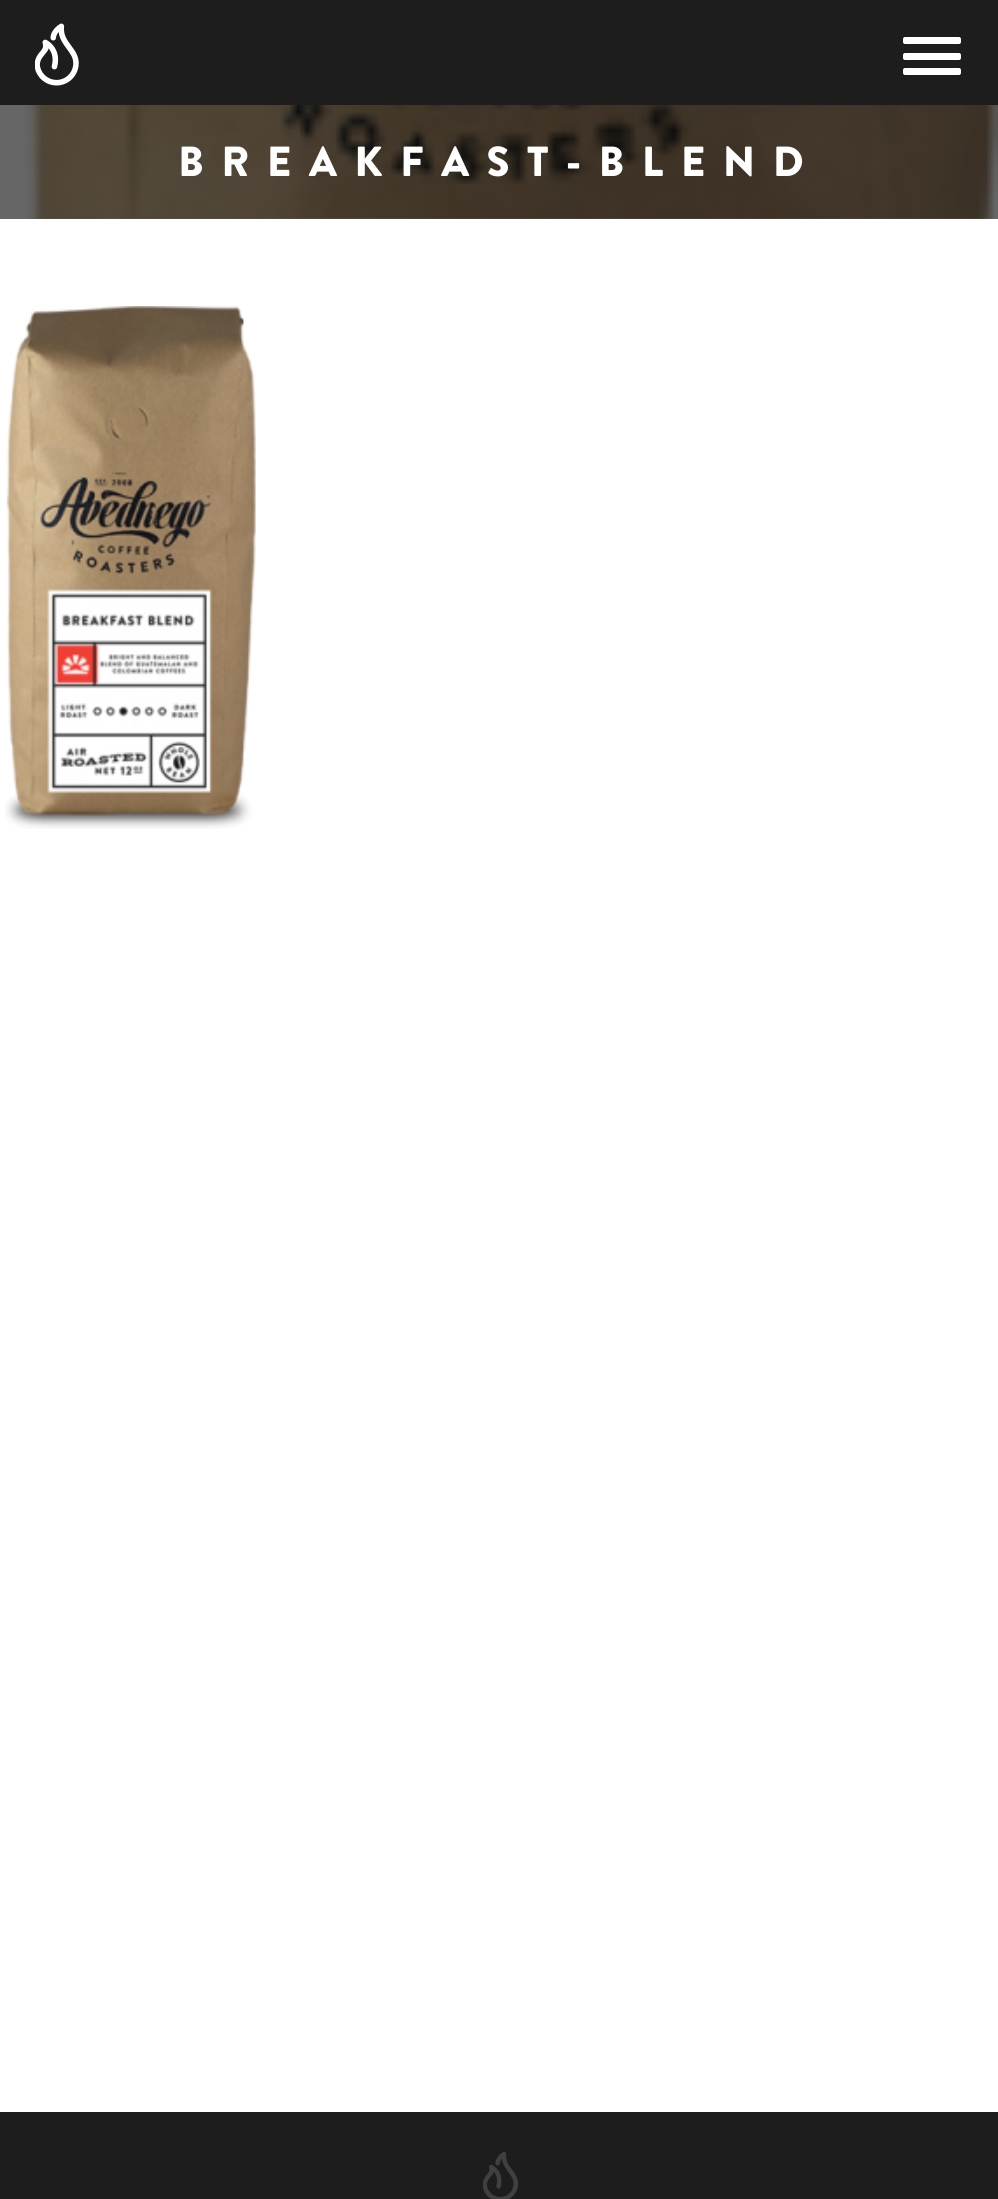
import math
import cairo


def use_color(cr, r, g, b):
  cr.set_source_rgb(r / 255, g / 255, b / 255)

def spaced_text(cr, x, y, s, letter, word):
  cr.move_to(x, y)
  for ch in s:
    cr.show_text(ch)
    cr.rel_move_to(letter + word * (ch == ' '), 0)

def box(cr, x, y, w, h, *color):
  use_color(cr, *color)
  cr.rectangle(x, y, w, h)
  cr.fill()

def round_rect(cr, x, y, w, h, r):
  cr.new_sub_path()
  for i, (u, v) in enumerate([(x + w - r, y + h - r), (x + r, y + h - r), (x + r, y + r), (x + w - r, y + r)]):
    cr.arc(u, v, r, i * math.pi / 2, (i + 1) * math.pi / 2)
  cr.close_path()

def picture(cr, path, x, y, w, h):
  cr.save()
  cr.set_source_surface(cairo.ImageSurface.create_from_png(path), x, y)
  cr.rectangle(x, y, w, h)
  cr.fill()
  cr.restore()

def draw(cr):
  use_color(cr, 255, 255, 255)
  cr.paint()
  box(cr, 0, 105, 998, 114, 102, 102, 102)
  box(cr, 0, 0, 998, 105, 29, 29, 29)
  picture(cr, "img_01.png", 35, 23, 44, 63)
  use_color(cr, 255, 255, 255)
  round_rect(cr, 903, 53, 58, 7, 2)
  cr.fill()
  round_rect(cr, 903, 37, 58, 7, 2)
  cr.fill()
  round_rect(cr, 903, 68, 58, 7, 2)
  cr.fill()
  picture(cr, "img_02.png", 24, 105, 974, 114)
  picture(cr, "img_03.png", 5, 306, 251, 523)
  box(cr, 0, 2112, 998, 87, 29, 29, 29)
  picture(cr, "img_04.png", 483, 2152, 35, 47)
  cr.select_font_face("Brandon Grotesque Black")
  cr.set_font_size(42)
  use_color(cr, 255, 255, 255)
  spaced_text(cr, 178, 176, "BREAKFAST-BLEND", 17.5, 0)


surface = cairo.ImageSurface(cairo.FORMAT_RGB24, 998, 2199)
cr = cairo.Context(surface)
options = cairo.FontOptions()
options.set_hint_metrics(cairo.HINT_METRICS_OFF)
options.set_hint_style(cairo.HINT_STYLE_NONE)
cr.set_font_options(options)
cr.set_miter_limit(4)
draw(cr)
surface.write_to_png("out.png")
